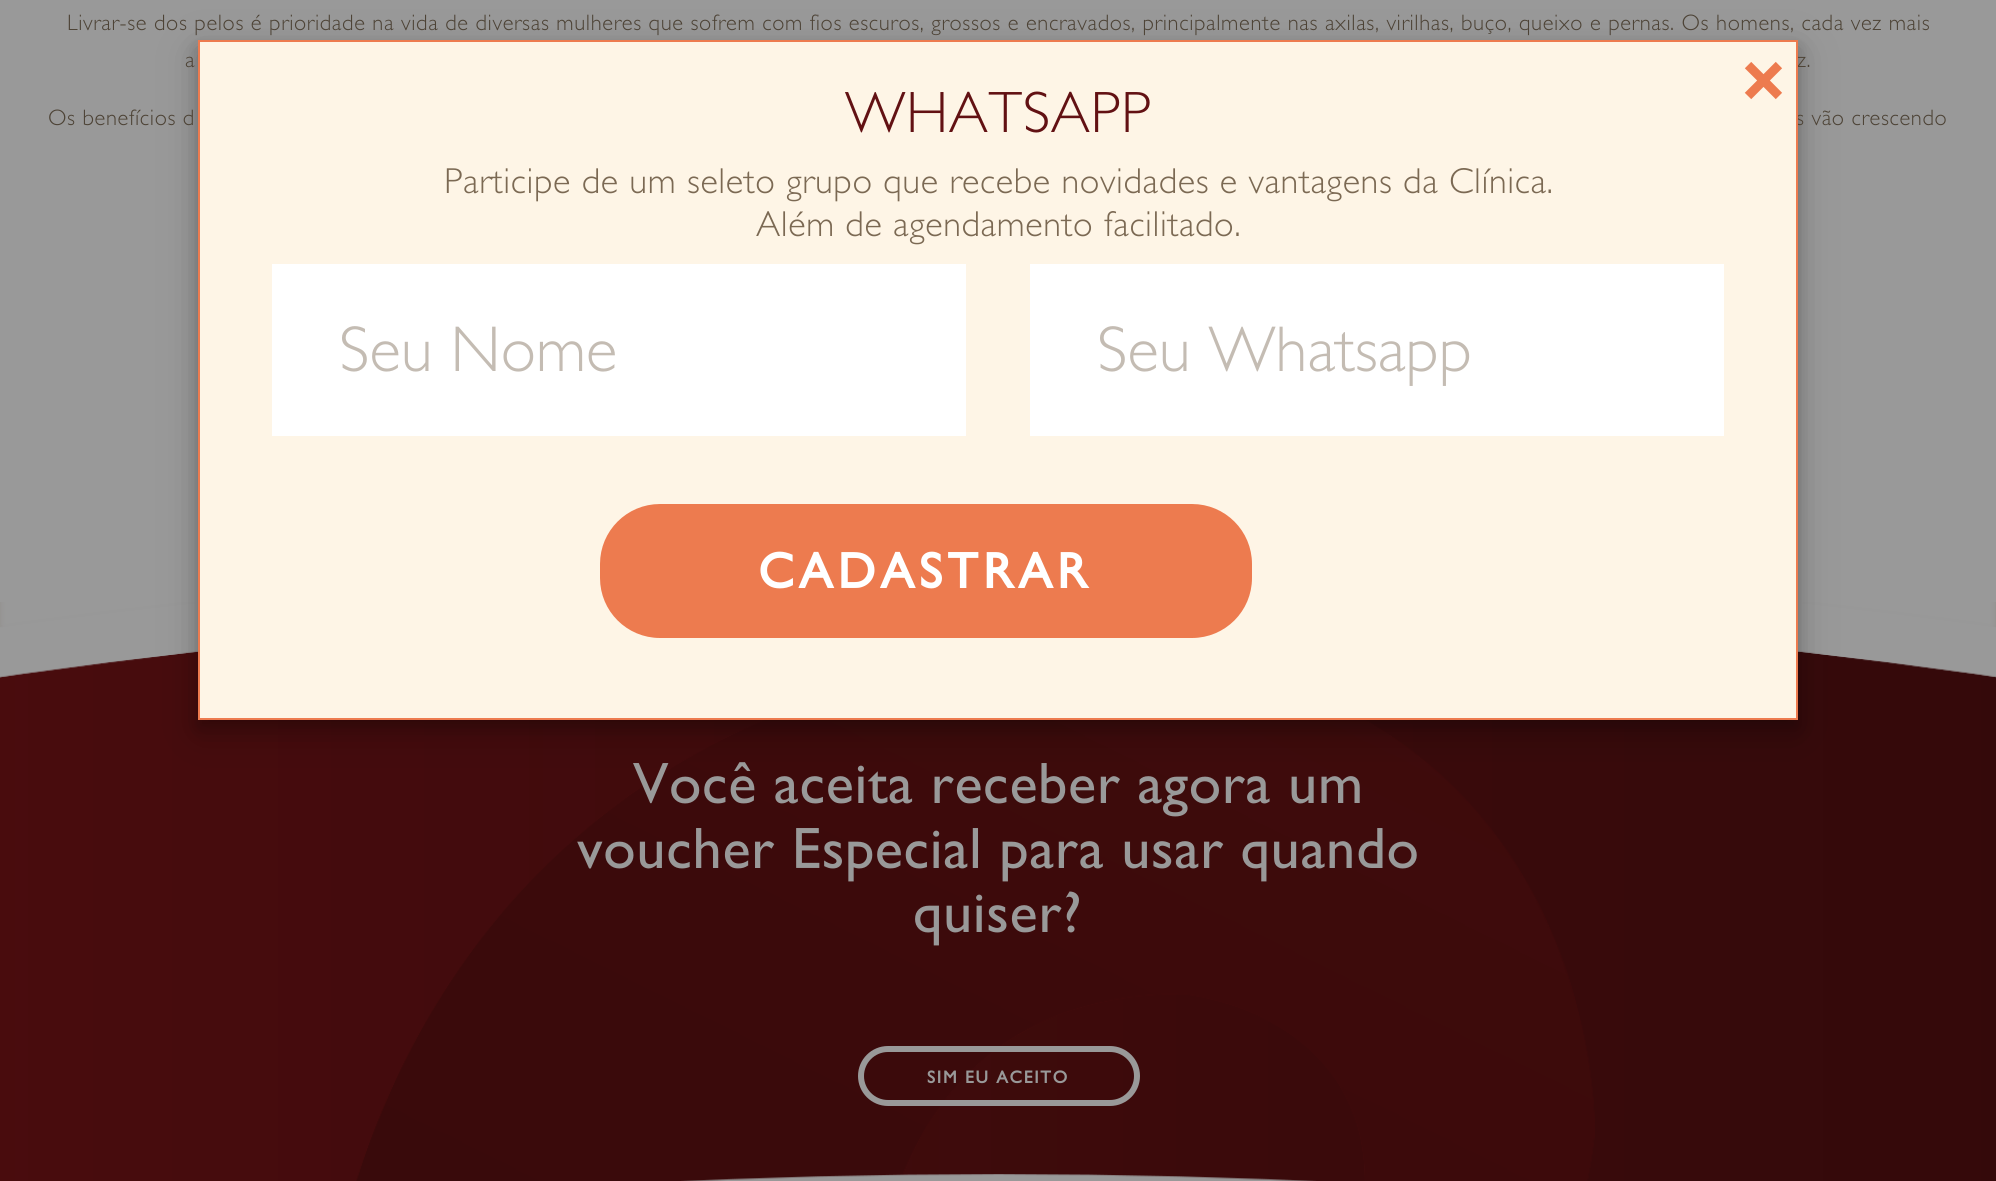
import math
import cairo


def use_color(cr, r, g, b):
  cr.set_source_rgb(r / 255, g / 255, b / 255)

def text(cr, x, y, s, family, size, color, bold=False, italic=False):
  cr.select_font_face(family, cairo.FONT_SLANT_ITALIC if italic else cairo.FONT_SLANT_NORMAL, cairo.FONT_WEIGHT_BOLD if bold else cairo.FONT_WEIGHT_NORMAL)
  cr.set_font_size(size)
  use_color(cr, *color)
  cr.move_to(x, y)
  cr.show_text(s)

def spaced_text(cr, x, y, s, letter, word):
  cr.move_to(x, y)
  for ch in s:
    cr.show_text(ch)
    cr.rel_move_to(letter + word * (ch == ' '), 0)

def box(cr, x, y, w, h, *color):
  use_color(cr, *color)
  cr.rectangle(x, y, w, h)
  cr.fill()

def round_rect(cr, x, y, w, h, r):
  cr.new_sub_path()
  for i, (u, v) in enumerate([(x + w - r, y + h - r), (x + r, y + h - r), (x + r, y + r), (x + w - r, y + r)]):
    cr.arc(u, v, r, i * math.pi / 2, (i + 1) * math.pi / 2)
  cr.close_path()

def shadow(cr, x, y, w, h, r, blur, alpha):
  cr.push_group_with_content(cairo.CONTENT_ALPHA)
  cr.set_operator(cairo.OPERATOR_SOURCE)
  for i in range(15, -16, -2):
    e = blur * i / 6
    if min(w, h) + 2 * e > 0:
      cr.set_source_rgba(0, 0, 0, alpha * math.erfc((i - 1) / 8.5) / 2)
      round_rect(cr, x - e, y - e, w + 2 * e, h + 2 * e, max(0, min(r + e + blur * .6, min(w, h) / 2 + e)))
      cr.fill()
  cr.mask(cr.pop_group())

def picture(cr, path, x, y, w, h):
  cr.save()
  cr.set_source_surface(cairo.ImageSurface.create_from_png(path), x, y)
  cr.rectangle(x, y, w, h)
  cr.fill()
  cr.restore()

def draw(cr):
  use_color(cr, 153, 153, 153)
  cr.paint()
  picture(cr, "img_01.png", 0, 602, 1996, 579)
  round_rect(cr, 861, 1049, 276, 54, 27)
  use_color(cr, 153, 153, 153)
  cr.set_line_width(6)
  cr.stroke()
  use_color(cr, 0, 0, 0)
  shadow(cr, 198, 52, 1600, 680, 0, 20, 0.19)
  shadow(cr, 198, 48, 1600, 680, 0, 8, 0.2)
  cr.select_font_face("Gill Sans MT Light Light")
  cr.set_font_size(22.45)
  use_color(cr, 77, 67, 54)
  spaced_text(cr, 67, 30, "Livrar-se dos pelos é prioridade na vida de diversas mulheres que sofrem com fios escuros, grossos e encravados, principalmente nas axilas, virilhas, buço, queixo e pernas. Os homens, cada vez mais", 0.62, 0)
  spaced_text(cr, 185, 67, "a", 0.62, 0)
  spaced_text(cr, 1797, 67, "z.", 0.62, 0)
  spaced_text(cr, 48, 125, "Os benefícios d", 0.62, 0)
  spaced_text(cr, 1796, 125, "s vão crescendo", 0.62, 0)
  cr.select_font_face("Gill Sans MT")
  cr.set_font_size(58.6)
  use_color(cr, 153, 153, 153)
  spaced_text(cr, 633, 803, "Você aceita receber agora um", 0.62, 0)
  spaced_text(cr, 577, 868, "voucher Especial para usar quando", 0.62, 0)
  spaced_text(cr, 913, 932, "quiser?", 0.62, 0)
  cr.select_font_face("Gill Sans MT", cairo.FONT_SLANT_NORMAL, cairo.FONT_WEIGHT_BOLD)
  cr.set_font_size(17.5)
  spaced_text(cr, 927, 1083, "SIM EU ACEITO", 1.75, 0)
  use_color(cr, 254, 245, 230)
  cr.rectangle(199, 41, 1598, 678)
  cr.fill_preserve()
  use_color(cr, 237, 123, 79)
  cr.set_line_width(2)
  cr.stroke()
  cr.set_font_size(80)
  spaced_text(cr, 1739, 110, "×", 0.62, 0)
  cr.select_font_face("Gill Sans MT Light Light")
  cr.set_font_size(58.6)
  use_color(cr, 98, 17, 19)
  spaced_text(cr, 845, 132, "WHATSAPP", 0.62, 0)
  cr.set_font_size(36.2)
  use_color(cr, 123, 105, 83)
  spaced_text(cr, 444, 193, "Participe de um seleto grupo que recebe novidades e vantagens da Clínica.", 0.62, 0)
  spaced_text(cr, 756, 236, "Além de agendamento facilitado.", 0.62, 0)
  box(cr, 272, 264, 694, 172, 255, 255, 255)
  text(cr, 339, 371, "Seu Nome", "Gill Sans MT Light Light", 65, (196, 188, 179))
  box(cr, 1030, 264, 694, 172, 255, 255, 255)
  text(cr, 1097, 371, "Seu Whatsapp", "Gill Sans MT Light Light", 65, (196, 188, 179))
  use_color(cr, 237, 123, 79)
  round_rect(cr, 603, 507, 646, 128, 57)
  cr.fill_preserve()
  cr.set_line_width(6)
  cr.stroke()
  cr.select_font_face("Gill Sans MT", cairo.FONT_SLANT_NORMAL, cairo.FONT_WEIGHT_BOLD)
  cr.set_font_size(50.5)
  use_color(cr, 255, 255, 255)
  spaced_text(cr, 758, 588, "CADASTRAR", 5, 0)


surface = cairo.ImageSurface(cairo.FORMAT_RGB24, 1996, 1181)
cr = cairo.Context(surface)
options = cairo.FontOptions()
options.set_hint_metrics(cairo.HINT_METRICS_OFF)
options.set_hint_style(cairo.HINT_STYLE_NONE)
cr.set_font_options(options)
cr.set_miter_limit(4)
draw(cr)
surface.write_to_png("out.png")
